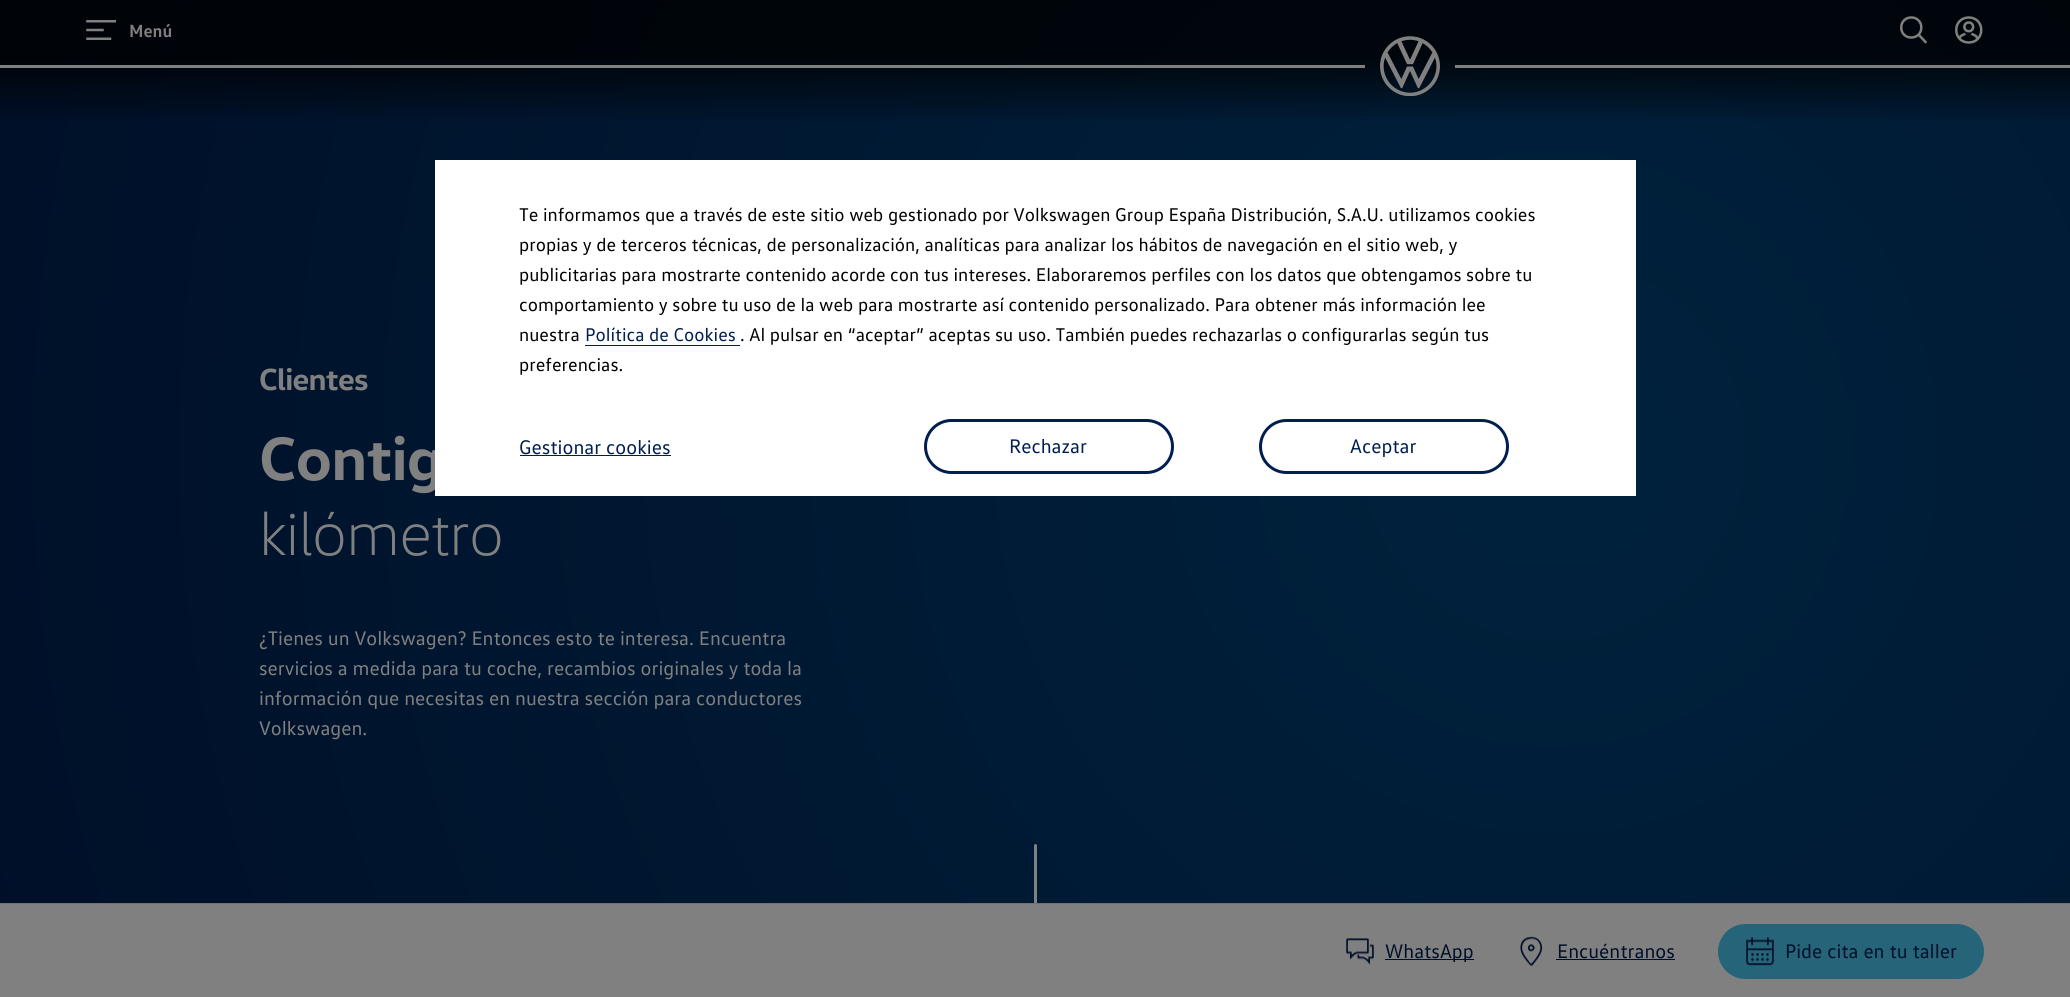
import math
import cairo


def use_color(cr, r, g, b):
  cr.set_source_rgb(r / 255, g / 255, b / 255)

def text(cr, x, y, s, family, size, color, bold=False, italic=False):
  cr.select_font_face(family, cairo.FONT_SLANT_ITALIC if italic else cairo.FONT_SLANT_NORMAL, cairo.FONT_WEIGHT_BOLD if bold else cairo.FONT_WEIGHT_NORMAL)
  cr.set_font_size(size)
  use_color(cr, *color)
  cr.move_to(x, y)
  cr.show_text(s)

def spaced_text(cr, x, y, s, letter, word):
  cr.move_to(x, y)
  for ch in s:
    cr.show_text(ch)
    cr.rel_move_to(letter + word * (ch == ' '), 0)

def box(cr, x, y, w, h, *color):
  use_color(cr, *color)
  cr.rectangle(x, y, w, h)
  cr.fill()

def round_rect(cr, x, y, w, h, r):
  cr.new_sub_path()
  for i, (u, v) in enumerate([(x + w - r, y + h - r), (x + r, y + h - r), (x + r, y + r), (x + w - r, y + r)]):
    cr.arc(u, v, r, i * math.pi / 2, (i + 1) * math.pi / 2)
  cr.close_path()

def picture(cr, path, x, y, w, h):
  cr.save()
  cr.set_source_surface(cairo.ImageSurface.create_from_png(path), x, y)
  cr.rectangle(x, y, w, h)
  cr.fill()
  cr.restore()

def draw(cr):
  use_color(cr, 255, 255, 255)
  cr.paint()
  gradient = cairo.RadialGradient(1553, 449, 0, 1553, 449, 1647)
  gradient.add_color_stop_rgba(0, 0, 0.133, 0.239, 1)
  gradient.add_color_stop_rgba(1, 0, 0.059, 0.157, 1)
  cr.set_source(gradient)
  cr.rectangle(0, 0, 2070, 903)
  cr.fill()
  gradient = cairo.LinearGradient(1035, 0, 1035, 125)
  gradient.add_color_stop_rgba(0.45, 0, 0, 0, 0.8)
  gradient.add_color_stop_rgba(1, 0, 0, 0, 0)
  cr.set_source(gradient)
  cr.rectangle(0, 0, 2070, 121)
  cr.fill()
  picture(cr, "img_01.png", 86, 20, 30, 20)
  picture(cr, "img_02.png", 1900, 16, 28, 28)
  picture(cr, "img_03.png", 1955, 16, 28, 28)
  box(cr, 0, 65, 1365, 3, 128, 128, 128)
  picture(cr, "img_04.png", 1380, 36, 60, 60)
  box(cr, 1455, 65, 615, 3, 128, 128, 128)
  round_rect(cr, 1034, 844, 3, 62, 1.5)
  cr.fill()
  box(cr, 0, 904, 2070, 93, 128, 128, 128)
  box(cr, 0, 903, 2070, 1, 112, 114, 116)
  picture(cr, "img_05.png", 1346, 938, 28, 27)
  box(cr, 1385, 959, 89, 1, 0, 15, 40)
  picture(cr, "img_06.png", 1520, 936, 23, 31)
  box(cr, 1556, 959, 119, 1, 0, 15, 40)
  use_color(cr, 38, 100, 122)
  round_rect(cr, 1718, 924, 266, 55, 27.5)
  cr.fill()
  picture(cr, "img_07.png", 1746, 937, 28, 29)
  text(cr, 129, 37, "Menú", "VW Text", 18, (128, 128, 128), bold=True)
  cr.select_font_face("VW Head", cairo.FONT_SLANT_NORMAL, cairo.FONT_WEIGHT_BOLD)
  cr.set_font_size(31)
  spaced_text(cr, 259, 390, "Clientes", -0.75, 0)
  cr.set_font_size(62)
  spaced_text(cr, 259, 480, "Contig", -0.75, 0)
  cr.select_font_face("VW Head Light")
  spaced_text(cr, 259, 555, "kilómetro", -0.75, 0)
  text(cr, 259, 645, "¿Tienes un Volkswagen? Entonces esto te interesa. Encuentra", "VW Text", 20, (128, 128, 128))
  text(cr, 259, 675, "servicios a medida para tu coche, recambios originales y toda la", "VW Text", 20, (128, 128, 128))
  text(cr, 259, 705, "información que necesitas en nuestra sección para conductores", "VW Text", 20, (128, 128, 128))
  text(cr, 259, 735, "Volkswagen.", "VW Text", 20, (128, 128, 128))
  text(cr, 1385, 958, "WhatsApp", "VW Text", 20, (0, 15, 40))
  text(cr, 1557, 958, "Encuéntranos", "VW Text", 20, (0, 15, 40))
  text(cr, 1785, 958, "Pide cita en tu taller", "VW Text", 20, (0, 15, 40))
  box(cr, 435, 160, 1201, 336, 255, 255, 255)
  text(cr, 519, 221, "Te informamos que a través de este sitio web gestionado por Volkswagen Group España Distribución, S.A.U. utilizamos cookies", "VW Text", 18.75, (0, 0, 0))
  text(cr, 519, 251, "propias y de terceros técnicas, de personalización, analíticas para analizar los hábitos de navegación en el sitio web, y", "VW Text", 18.75, (0, 0, 0))
  text(cr, 519, 281, "publicitarias para mostrarte contenido acorde con tus intereses. Elaboraremos perfiles con los datos que obtengamos sobre tu", "VW Text", 18.75, (0, 0, 0))
  text(cr, 519, 311, "comportamiento y sobre tu uso de la web para mostrarte así contenido personalizado. Para obtener más información lee", "VW Text", 18.75, (0, 0, 0))
  text(cr, 519, 341, "nuestra", "VW Text", 18.75, (0, 0, 0))
  text(cr, 585, 341, "Política de Cookies", "VW Text", 18.75, (0, 30, 80))
  box(cr, 585, 345, 155, 1, 0, 30, 80)
  text(cr, 740, 341, ". Al pulsar en “aceptar” aceptas su uso. También puedes rechazarlas o configurarlas según tus", "VW Text", 18.75, (0, 0, 0))
  text(cr, 519, 371, "preferencias.", "VW Text", 18.75, (0, 0, 0))
  text(cr, 519, 454, "Gestionar cookies", "VW Text", 20, (0, 30, 80))
  box(cr, 520, 455, 151, 1, 0, 30, 80)
  round_rect(cr, 925.5, 420.5, 247, 52, 26)
  cr.set_line_width(3)
  cr.stroke()
  text(cr, 1009, 453, "Rechazar", "VW Text", 20, (0, 30, 80))
  round_rect(cr, 1260.5, 420.5, 247, 52, 26)
  cr.stroke()
  text(cr, 1350, 453, "Aceptar", "VW Text", 20, (0, 30, 80))


surface = cairo.ImageSurface(cairo.FORMAT_RGB24, 2070, 997)
cr = cairo.Context(surface)
options = cairo.FontOptions()
options.set_hint_metrics(cairo.HINT_METRICS_OFF)
options.set_hint_style(cairo.HINT_STYLE_NONE)
cr.set_font_options(options)
cr.set_miter_limit(4)
draw(cr)
surface.write_to_png("out.png")
